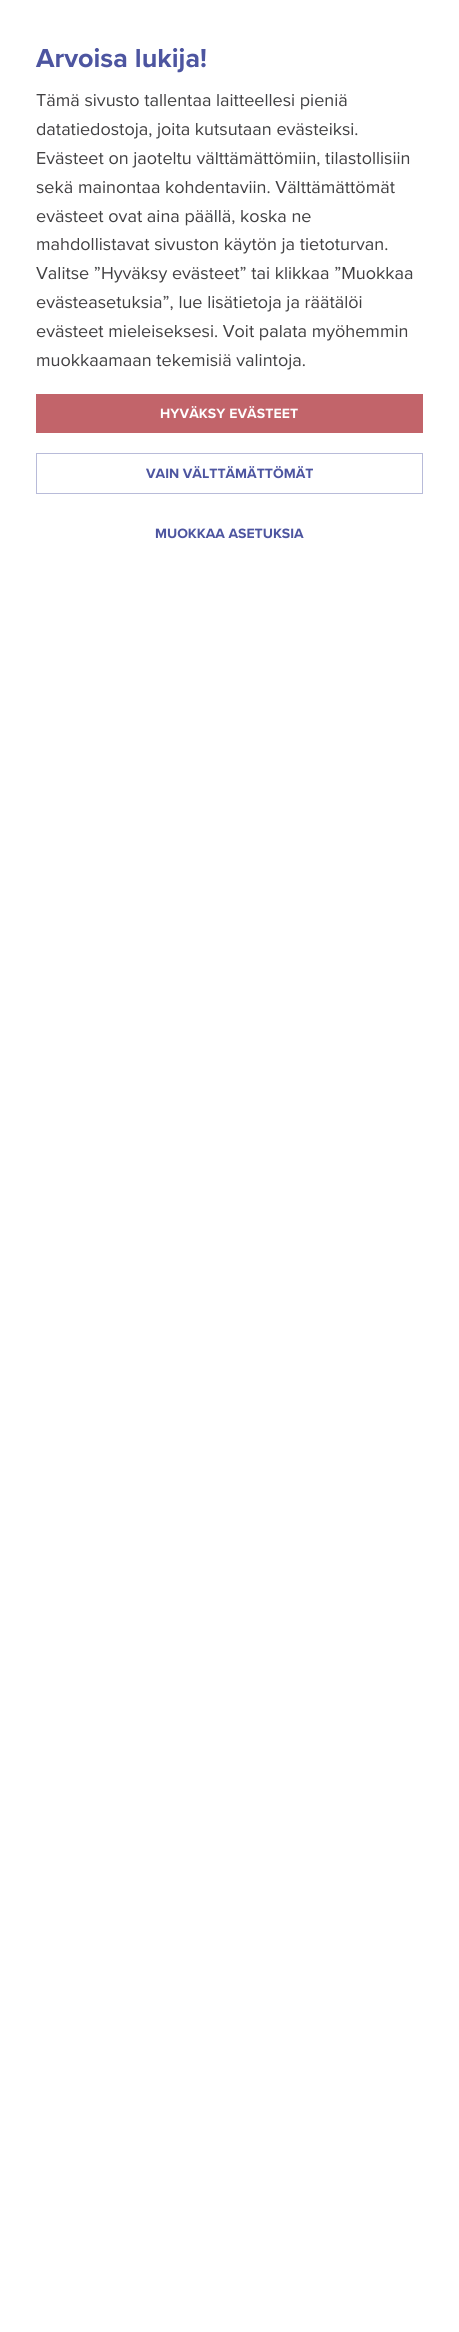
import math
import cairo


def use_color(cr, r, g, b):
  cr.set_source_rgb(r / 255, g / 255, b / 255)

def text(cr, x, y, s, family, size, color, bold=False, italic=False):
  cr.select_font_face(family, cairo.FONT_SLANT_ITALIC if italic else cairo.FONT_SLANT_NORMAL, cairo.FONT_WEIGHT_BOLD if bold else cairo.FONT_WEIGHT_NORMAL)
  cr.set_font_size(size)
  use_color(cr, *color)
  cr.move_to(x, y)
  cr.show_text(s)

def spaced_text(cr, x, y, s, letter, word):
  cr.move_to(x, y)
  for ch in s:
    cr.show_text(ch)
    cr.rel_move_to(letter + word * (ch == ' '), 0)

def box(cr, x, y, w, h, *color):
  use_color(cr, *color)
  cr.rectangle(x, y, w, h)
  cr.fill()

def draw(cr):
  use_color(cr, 255, 255, 255)
  cr.paint()
  box(cr, 36, 394, 387, 39, 194, 100, 106)
  cr.rectangle(36.5, 453.5, 386, 40)
  use_color(cr, 184, 187, 217)
  cr.set_line_width(1)
  cr.stroke()
  text(cr, 36, 67, "Arvoisa lukija!", "Proxima Nova", 27, (77, 85, 160), bold=True)
  text(cr, 36, 106, "Tämä sivusto tallentaa laitteellesi pieniä", "Proxima Nova", 18, (65, 64, 66))
  text(cr, 36, 135, "datatiedostoja, joita kutsutaan evästeiksi.", "Proxima Nova", 18, (65, 64, 66))
  text(cr, 36, 164, "Evästeet on jaoteltu välttämättömiin, tilastollisiin", "Proxima Nova", 18, (65, 64, 66))
  text(cr, 36, 193, "sekä mainontaa kohdentaviin. Välttämättömät", "Proxima Nova", 18, (65, 64, 66))
  text(cr, 36, 222, "evästeet ovat aina päällä, koska ne", "Proxima Nova", 18, (65, 64, 66))
  text(cr, 36, 250, "mahdollistavat sivuston käytön ja tietoturvan.", "Proxima Nova", 18, (65, 64, 66))
  text(cr, 36, 279, "Valitse ”Hyväksy evästeet” tai klikkaa ”Muokkaa", "Proxima Nova", 18, (65, 64, 66))
  text(cr, 36, 308, "evästeasetuksia”, lue lisätietoja ja räätälöi", "Proxima Nova", 18, (65, 64, 66))
  text(cr, 36, 337, "evästeet mieleiseksesi. Voit palata myöhemmin", "Proxima Nova", 18, (65, 64, 66))
  text(cr, 36, 366, "muokkaamaan tekemisiä valintoja.", "Proxima Nova", 18, (65, 64, 66))
  cr.select_font_face("Proxima Nova", cairo.FONT_SLANT_NORMAL, cairo.FONT_WEIGHT_BOLD)
  cr.set_font_size(14)
  use_color(cr, 255, 255, 255)
  spaced_text(cr, 160, 418, "HYVÄKSY EVÄSTEET", 0.1, 0)
  text(cr, 146, 478, "VAIN VÄLTTÄMÄTTÖMÄT", "Proxima Nova", 14, (77, 85, 160), bold=True)
  text(cr, 155, 538, "MUOKKAA ASETUKSIA", "Proxima Nova", 14, (77, 85, 160), bold=True)


surface = cairo.ImageSurface(cairo.FORMAT_RGB24, 459, 2332)
cr = cairo.Context(surface)
options = cairo.FontOptions()
options.set_hint_metrics(cairo.HINT_METRICS_OFF)
options.set_hint_style(cairo.HINT_STYLE_NONE)
cr.set_font_options(options)
cr.set_miter_limit(4)
draw(cr)
surface.write_to_png("out.png")
